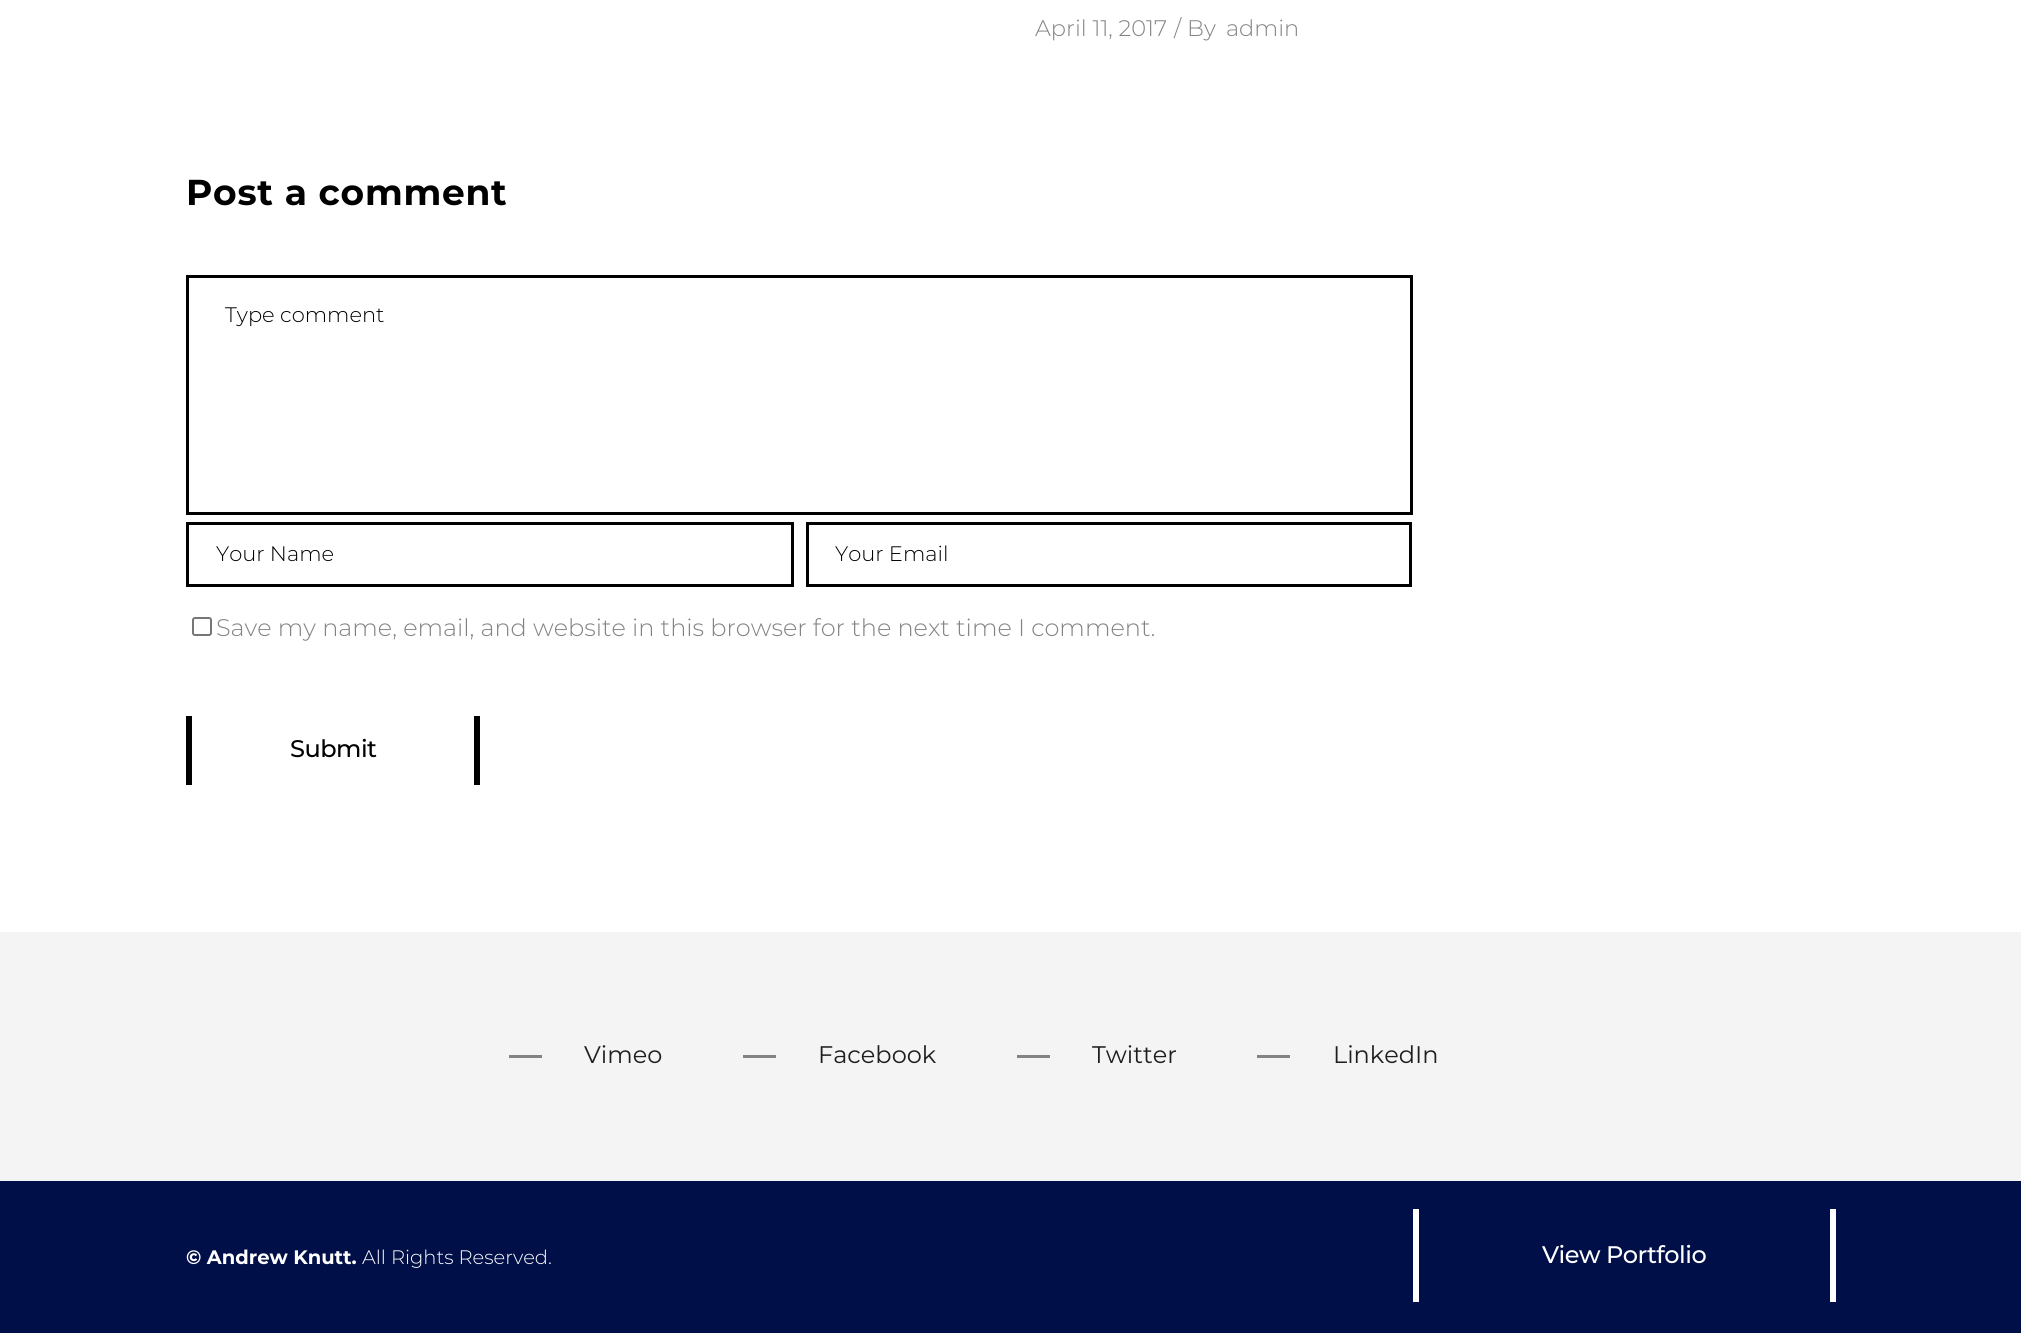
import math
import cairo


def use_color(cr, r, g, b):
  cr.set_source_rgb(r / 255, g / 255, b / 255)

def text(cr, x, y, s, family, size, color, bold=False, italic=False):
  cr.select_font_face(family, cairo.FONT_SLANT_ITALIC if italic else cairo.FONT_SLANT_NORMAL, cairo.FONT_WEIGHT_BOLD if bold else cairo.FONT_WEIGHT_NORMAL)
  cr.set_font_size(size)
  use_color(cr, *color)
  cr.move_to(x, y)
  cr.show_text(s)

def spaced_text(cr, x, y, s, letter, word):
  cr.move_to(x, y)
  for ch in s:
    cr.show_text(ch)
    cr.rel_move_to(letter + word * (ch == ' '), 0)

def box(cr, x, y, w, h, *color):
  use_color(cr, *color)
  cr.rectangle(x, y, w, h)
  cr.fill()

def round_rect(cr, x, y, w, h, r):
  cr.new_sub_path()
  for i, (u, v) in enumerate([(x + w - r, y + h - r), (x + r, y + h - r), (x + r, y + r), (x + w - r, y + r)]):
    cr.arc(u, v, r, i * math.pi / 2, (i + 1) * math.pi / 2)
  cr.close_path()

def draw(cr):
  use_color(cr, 255, 255, 255)
  cr.paint()
  cr.rectangle(187.5, 276.5, 1224, 237)
  use_color(cr, 0, 0, 0)
  cr.set_line_width(3)
  cr.stroke()
  cr.rectangle(187.5, 523.5, 605, 62)
  cr.stroke()
  cr.rectangle(807.5, 523.5, 603, 62)
  cr.stroke()
  round_rect(cr, 193, 618, 18, 17, 2)
  use_color(cr, 118, 118, 118)
  cr.set_line_width(2)
  cr.stroke()
  box(cr, 474, 716, 6, 69, 0, 0, 0)
  box(cr, 186, 716, 6, 69, 0, 0, 0)
  box(cr, 0, 932, 2021, 249, 244, 244, 244)
  box(cr, 509, 1055, 33, 3, 131, 131, 131)
  box(cr, 743, 1055, 33, 3, 131, 131, 131)
  box(cr, 1017, 1055, 33, 3, 131, 131, 131)
  box(cr, 1257, 1055, 33, 3, 131, 131, 131)
  box(cr, 0, 1181, 2021, 152, 0, 15, 71)
  box(cr, 1413, 1209, 6, 93, 255, 255, 255)
  box(cr, 1830, 1209, 6, 93, 255, 255, 255)
  text(cr, 1035, 36, "April 11, 2017", "Montserrat Light", 22.5, (131, 131, 131))
  text(cr, 1174, 36, "/ By", "Montserrat Light", 22.5, (131, 131, 131))
  text(cr, 1226, 36, "admin", "Montserrat Light", 22.5, (131, 131, 131))
  cr.select_font_face("Montserrat", cairo.FONT_SLANT_NORMAL, cairo.FONT_WEIGHT_BOLD)
  cr.set_font_size(36)
  use_color(cr, 0, 0, 0)
  spaced_text(cr, 186, 205, "Post a comment", 0.75, 0)
  text(cr, 225, 322, "Type comment", "Montserrat Light", 21, (0, 0, 0))
  text(cr, 216, 561, "Your Name", "Montserrat Light", 21, (0, 0, 0))
  text(cr, 835, 561, "Your Email", "Montserrat Light", 21, (0, 0, 0))
  text(cr, 216, 636, "Save my name, email, and website in this browser for the next time I comment.", "Montserrat Light", 24, (131, 131, 131))
  cr.select_font_face("Montserrat Medium")
  use_color(cr, 0, 0, 0)
  spaced_text(cr, 290, 757, "Submit", -0.5, 0)
  text(cr, 584, 1063, "Vimeo", "Montserrat", 24, (30, 30, 30))
  text(cr, 818, 1063, "Facebook", "Montserrat", 24, (30, 30, 30))
  text(cr, 1092, 1063, "Twitter", "Montserrat", 24, (30, 30, 30))
  text(cr, 1333, 1063, "LinkedIn", "Montserrat", 24, (30, 30, 30))
  text(cr, 186, 1264, "© Andrew Knutt.", "Montserrat", 19.5, (255, 255, 255), bold=True)
  text(cr, 362, 1264, "All Rights Reserved.", "Montserrat Light", 19.5, (255, 255, 255))
  cr.select_font_face("Montserrat Medium")
  cr.set_font_size(24)
  spaced_text(cr, 1542, 1263, "View Portfolio", -0.5, 0)


surface = cairo.ImageSurface(cairo.FORMAT_RGB24, 2021, 1333)
cr = cairo.Context(surface)
options = cairo.FontOptions()
options.set_hint_metrics(cairo.HINT_METRICS_OFF)
options.set_hint_style(cairo.HINT_STYLE_NONE)
cr.set_font_options(options)
cr.set_miter_limit(4)
draw(cr)
surface.write_to_png("out.png")
